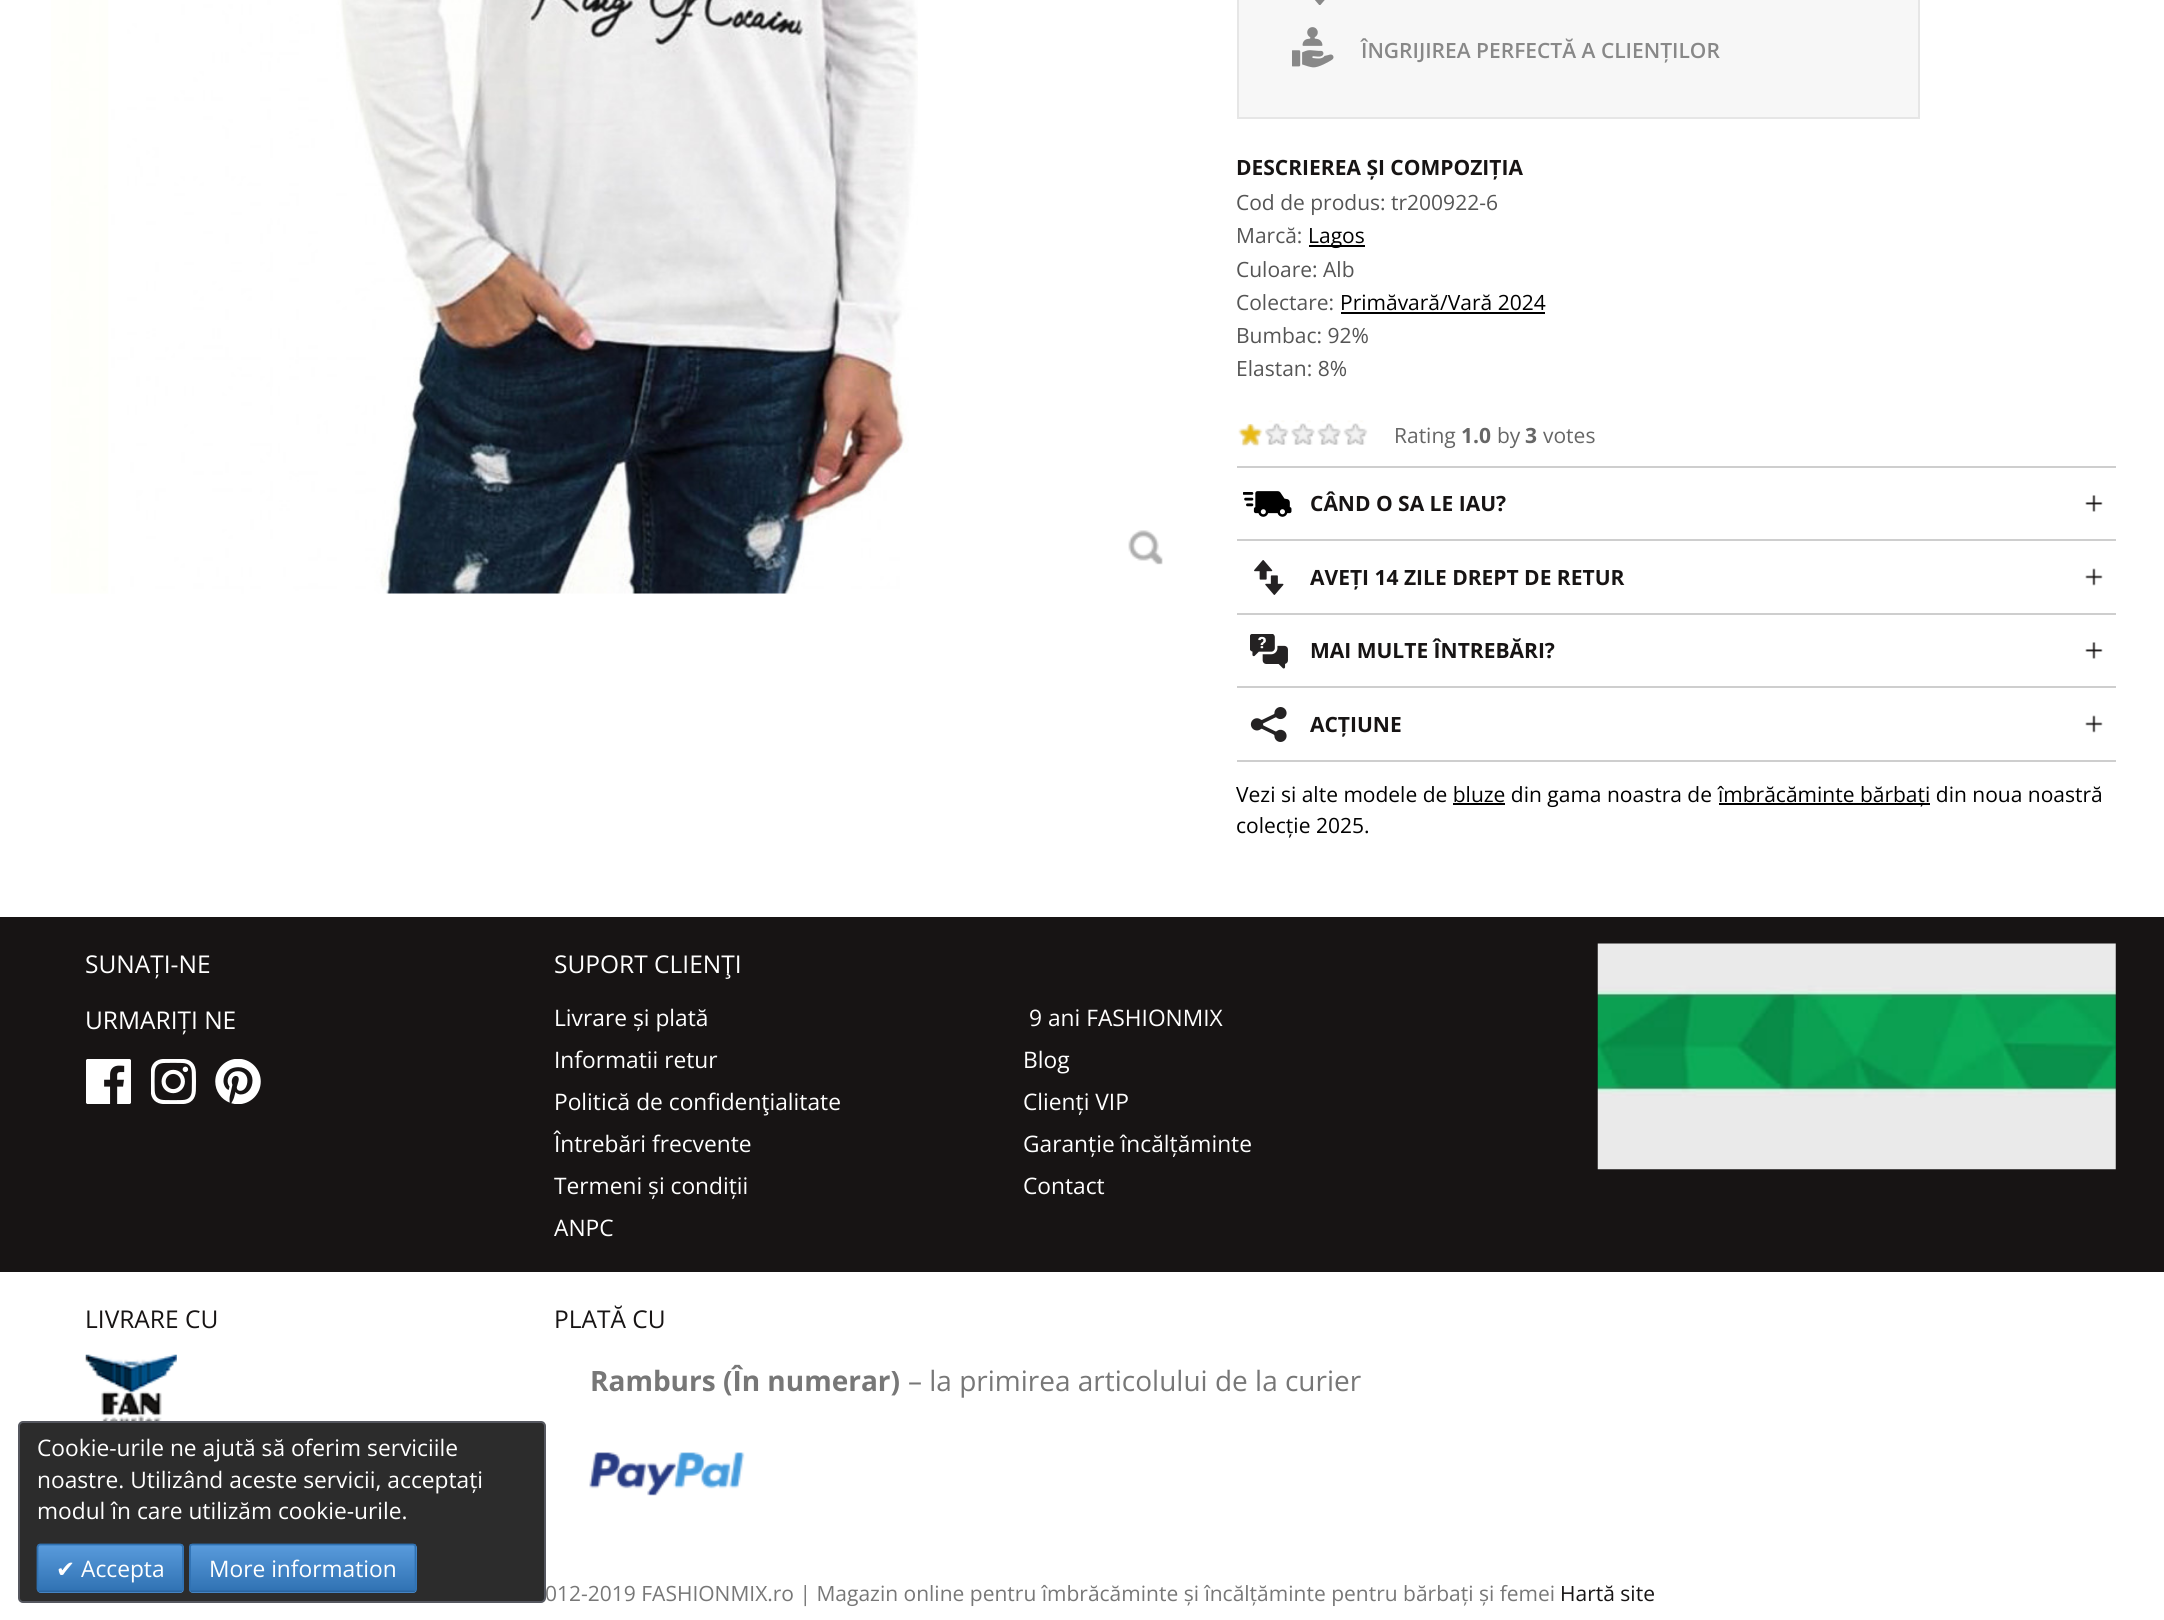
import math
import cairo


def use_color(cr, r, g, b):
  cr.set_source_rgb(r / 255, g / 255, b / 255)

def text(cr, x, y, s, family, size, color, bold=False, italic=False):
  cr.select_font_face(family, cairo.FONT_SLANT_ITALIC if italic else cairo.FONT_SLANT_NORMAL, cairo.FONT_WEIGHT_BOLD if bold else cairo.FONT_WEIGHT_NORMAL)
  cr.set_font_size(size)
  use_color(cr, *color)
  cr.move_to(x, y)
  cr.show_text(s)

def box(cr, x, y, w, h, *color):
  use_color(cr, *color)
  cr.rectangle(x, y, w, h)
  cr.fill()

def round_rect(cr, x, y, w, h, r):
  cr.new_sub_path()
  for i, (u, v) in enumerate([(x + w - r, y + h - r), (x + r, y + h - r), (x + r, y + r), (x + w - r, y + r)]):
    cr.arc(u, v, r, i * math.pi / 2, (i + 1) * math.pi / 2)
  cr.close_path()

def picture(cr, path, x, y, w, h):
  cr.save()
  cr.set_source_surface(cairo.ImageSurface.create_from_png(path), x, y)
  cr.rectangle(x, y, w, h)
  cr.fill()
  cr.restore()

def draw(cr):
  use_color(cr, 255, 255, 255)
  cr.paint()
  picture(cr, "img_01.png", 51, 0, 867, 594)
  picture(cr, "img_02.png", 1128, 530, 35, 35)
  use_color(cr, 247, 247, 247)
  cr.rectangle(1238, -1, 681, 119)
  cr.fill_preserve()
  use_color(cr, 230, 230, 230)
  cr.stroke()
  picture(cr, "img_03.png", 1315, 0, 10, 5)
  picture(cr, "img_04.png", 1292, 27, 42, 41)
  box(cr, 1309, 245, 56, 2, 0, 0, 0)
  box(cr, 1341, 312, 204, 2, 0, 0, 0)
  picture(cr, "img_05.png", 1238, 423, 25, 24)
  picture(cr, "img_06.png", 1265, 420, 24, 25)
  picture(cr, "img_07.png", 1291, 420, 24, 25)
  picture(cr, "img_08.png", 1317, 420, 24, 25)
  picture(cr, "img_09.png", 1343, 420, 25, 25)
  box(cr, 1237, 466, 879, 2, 206, 206, 206)
  picture(cr, "img_10.png", 1243, 491, 49, 26)
  box(cr, 1237, 539, 879, 2, 206, 206, 206)
  picture(cr, "img_11.png", 2085, 495, 18, 17)
  picture(cr, "img_12.png", 1254, 560, 30, 35)
  box(cr, 1237, 613, 879, 2, 206, 206, 206)
  picture(cr, "img_13.png", 2085, 568, 18, 18)
  picture(cr, "img_14.png", 1250, 634, 38, 35)
  box(cr, 1237, 686, 879, 2, 206, 206, 206)
  picture(cr, "img_11.png", 2085, 642, 18, 17)
  picture(cr, "img_15.png", 1250, 707, 37, 35)
  box(cr, 1237, 760, 879, 2, 206, 206, 206)
  picture(cr, "img_13.png", 2085, 715, 18, 18)
  box(cr, 1719, 803, 211, 2, 0, 0, 0)
  box(cr, 1453, 803, 52, 2, 0, 0, 0)
  box(cr, 0, 917, 2164, 355, 23, 20, 20)
  picture(cr, "img_16.png", 86, 1059, 45, 45)
  picture(cr, "img_17.png", 151, 1059, 45, 45)
  picture(cr, "img_18.png", 215, 1059, 46, 45)
  picture(cr, "img_19.png", 1597, 943, 519, 227)
  picture(cr, "img_20.png", 85, 1354, 92, 67)
  picture(cr, "img_21.png", 589, 1452, 156, 44)
  text(cr, 1361, 58, "ÎNGRIJIREA PERFECTĂ A CLIENȚILOR", "Open Sans SemiBold", 21, (136, 136, 136))
  text(cr, 1236, 175, "DESCRIEREA ȘI COMPOZIȚIA", "Open Sans", 21, (23, 20, 20), bold=True)
  text(cr, 1236, 210, "Cod de produs: tr200922-6", "Open Sans", 21, (85, 85, 85))
  text(cr, 1236, 243, "Marcă:", "Open Sans", 21, (85, 85, 85))
  text(cr, 1308, 243, "Lagos", "Open Sans", 21, (0, 0, 0))
  text(cr, 1236, 277, "Culoare: Alb", "Open Sans", 21, (85, 85, 85))
  text(cr, 1236, 310, "Colectare:", "Open Sans", 21, (85, 85, 85))
  text(cr, 1340, 310, "Primăvară/Vară 2024", "Open Sans", 21, (0, 0, 0))
  text(cr, 1236, 343, "Bumbac: 92%", "Open Sans", 21, (85, 85, 85))
  text(cr, 1236, 376, "Elastan: 8%", "Open Sans", 21, (85, 85, 85))
  text(cr, 1394, 443, "Rating", "Open Sans", 21, (102, 102, 102))
  text(cr, 1461, 443, "1.0", "Open Sans", 21, (102, 102, 102), bold=True)
  text(cr, 1497, 443, "by", "Open Sans", 21, (102, 102, 102))
  text(cr, 1525, 443, "3", "Open Sans", 21, (102, 102, 102), bold=True)
  text(cr, 1543, 443, "votes", "Open Sans", 21, (102, 102, 102))
  text(cr, 1310, 511, "CÂND O SA LE IAU?", "Open Sans", 21, (23, 20, 20), bold=True)
  text(cr, 1310, 585, "AVEȚI 14 ZILE DREPT DE RETUR", "Open Sans", 21, (23, 20, 20), bold=True)
  text(cr, 1310, 658, "MAI MULTE ÎNTREBĂRI?", "Open Sans", 21, (23, 20, 20), bold=True)
  text(cr, 1310, 732, "ACȚIUNE", "Open Sans", 21, (23, 20, 20), bold=True)
  text(cr, 1236, 802, "Vezi si alte modele de bluze din gama noastra de", "Open Sans", 21, (0, 0, 0))
  text(cr, 1718, 802, "îmbrăcăminte bărbați din noua noastră", "Open Sans", 21, (0, 0, 0))
  text(cr, 1236, 833, "colecție 2025.", "Open Sans", 21, (0, 0, 0))
  text(cr, 85, 973, "SUNAȚI-NE", "Open Sans", 24.5, (255, 255, 255))
  text(cr, 85, 1029, "URMARIȚI NE", "Open Sans", 24.5, (255, 255, 255))
  text(cr, 554, 973, "SUPORT CLIENŢI", "Open Sans", 24.5, (255, 255, 255))
  text(cr, 554, 1026, "Livrare și plată", "Open Sans", 22.75, (255, 255, 255))
  text(cr, 554, 1068, "Informatii retur", "Open Sans", 22.75, (255, 255, 255))
  text(cr, 554, 1110, "Politică de confidenţialitate", "Open Sans", 22.75, (255, 255, 255))
  text(cr, 554, 1152, "Întrebări frecvente", "Open Sans", 22.75, (255, 255, 255))
  text(cr, 554, 1194, "Termeni și condiții", "Open Sans", 22.75, (255, 255, 255))
  text(cr, 554, 1236, "ANPC", "Open Sans", 22.75, (255, 255, 255))
  text(cr, 1029, 1026, "9 ani FASHIONMIX", "Open Sans", 22.75, (255, 255, 255))
  text(cr, 1023, 1068, "Blog", "Open Sans", 22.75, (255, 255, 255))
  text(cr, 1023, 1110, "Clienți VIP", "Open Sans", 22.75, (255, 255, 255))
  text(cr, 1023, 1152, "Garanție încălțăminte", "Open Sans", 22.75, (255, 255, 255))
  text(cr, 1023, 1194, "Contact", "Open Sans", 22.75, (255, 255, 255))
  text(cr, 85, 1328, "LIVRARE CU", "Open Sans", 24.5, (23, 20, 20))
  text(cr, 554, 1328, "PLATĂ CU", "Open Sans", 24.5, (23, 20, 20))
  text(cr, 590, 1391, "Ramburs (În numerar)", "Open Sans", 28, (119, 119, 119), bold=True)
  text(cr, 908, 1391, "– la primirea articolului de la curier", "Open Sans", 28, (119, 119, 119))
  text(cr, 545, 1601, "012-2019 FASHIONMIX.ro | Magazin online pentru îmbrăcăminte și încălțăminte pentru bărbați și femei", "Open Sans", 21, (119, 119, 119))
  text(cr, 1560, 1601, "Hartă site", "Open Sans", 21, (23, 20, 20))
  use_color(cr, 44, 44, 44)
  round_rect(cr, 19, 1422, 526, 180, 4)
  cr.fill_preserve()
  use_color(cr, 85, 87, 95)
  cr.stroke()
  text(cr, 37, 1456, "Cookie-urile ne ajută să oferim serviciile", "Open Sans", 22.75, (255, 255, 255))
  text(cr, 37, 1488, "noastre. Utilizând aceste servicii, acceptați", "Open Sans", 22.75, (255, 255, 255))
  text(cr, 37, 1519, "modul în care utilizăm cookie-urile.", "Open Sans", 22.75, (255, 255, 255))
  cr.save()
  round_rect(cr, 37, 1544, 147, 49, 4)
  cr.clip()
  gradient = cairo.LinearGradient(110, 1545, 110, 1591)
  gradient.add_color_stop_rgba(0, 0.349, 0.608, 0.863, 1)
  gradient.add_color_stop_rgba(1, 0.188, 0.447, 0.702, 1)
  cr.set_source(gradient)
  cr.rectangle(37, 1545, 147, 46)
  cr.fill()
  gradient = cairo.LinearGradient(110, 1591, 110, 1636)
  gradient.add_color_stop_rgba(0, 0.349, 0.608, 0.863, 1)
  gradient.add_color_stop_rgba(1, 0.188, 0.447, 0.702, 1)
  cr.set_source(gradient)
  cr.rectangle(37, 1591, 147, 2)
  cr.fill()
  cr.restore()
  cr.new_path()
  cr.move_to(182, 1591)
  cr.line_to(180, 1591.5)
  cr.line_to(40, 1591.5)
  cr.line_to(38.5, 1591)
  use_color(cr, 42, 101, 160)
  cr.set_line_width(1.8)
  cr.stroke()
  cr.new_path()
  cr.move_to(38.5, 1591)
  cr.line_to(37.5, 1589)
  cr.line_to(37.5, 1547)
  cr.line_to(38.5, 1545)
  cr.line_to(40, 1544.5)
  cr.line_to(180, 1544.5)
  cr.line_to(182, 1545)
  cr.line_to(183, 1547)
  cr.line_to(183, 1589)
  cr.line_to(182, 1591)
  use_color(cr, 48, 114, 179)
  cr.stroke()
  text(cr, 56, 1577, "✔", "DejaVu Sans", 22.75, (255, 255, 255))
  text(cr, 81, 1577, "Accepta", "Open Sans", 22.75, (255, 255, 255))
  cr.save()
  round_rect(cr, 189, 1544, 228, 49, 4)
  cr.clip()
  gradient = cairo.LinearGradient(303, 1545, 303, 1591)
  gradient.add_color_stop_rgba(0, 0.349, 0.608, 0.863, 1)
  gradient.add_color_stop_rgba(1, 0.188, 0.447, 0.702, 1)
  cr.set_source(gradient)
  cr.rectangle(189, 1545, 228, 46)
  cr.fill()
  gradient = cairo.LinearGradient(303, 1591, 303, 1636)
  gradient.add_color_stop_rgba(0, 0.349, 0.608, 0.863, 1)
  gradient.add_color_stop_rgba(1, 0.188, 0.447, 0.702, 1)
  cr.set_source(gradient)
  cr.rectangle(189, 1591, 228, 2)
  cr.fill()
  cr.restore()
  cr.new_path()
  cr.move_to(415, 1591)
  cr.line_to(414, 1591.5)
  cr.line_to(229, 1591.5)
  cr.line_to(192.5, 1591.5)
  cr.line_to(190.5, 1591)
  use_color(cr, 42, 101, 160)
  cr.stroke()
  cr.new_path()
  cr.move_to(190.5, 1591)
  cr.line_to(190, 1589)
  cr.line_to(190, 1547)
  cr.line_to(190.5, 1545)
  cr.line_to(192.5, 1544.5)
  cr.line_to(413, 1544.5)
  cr.line_to(415, 1545)
  cr.line_to(415.5, 1547)
  cr.line_to(415.5, 1589)
  cr.line_to(415, 1591)
  use_color(cr, 48, 114, 179)
  cr.stroke()
  text(cr, 209, 1577, "More information", "Open Sans", 22.75, (255, 255, 255))


surface = cairo.ImageSurface(cairo.FORMAT_RGB24, 2164, 1620)
cr = cairo.Context(surface)
options = cairo.FontOptions()
options.set_hint_metrics(cairo.HINT_METRICS_OFF)
options.set_hint_style(cairo.HINT_STYLE_NONE)
cr.set_font_options(options)
cr.set_miter_limit(4)
draw(cr)
surface.write_to_png("out.png")
